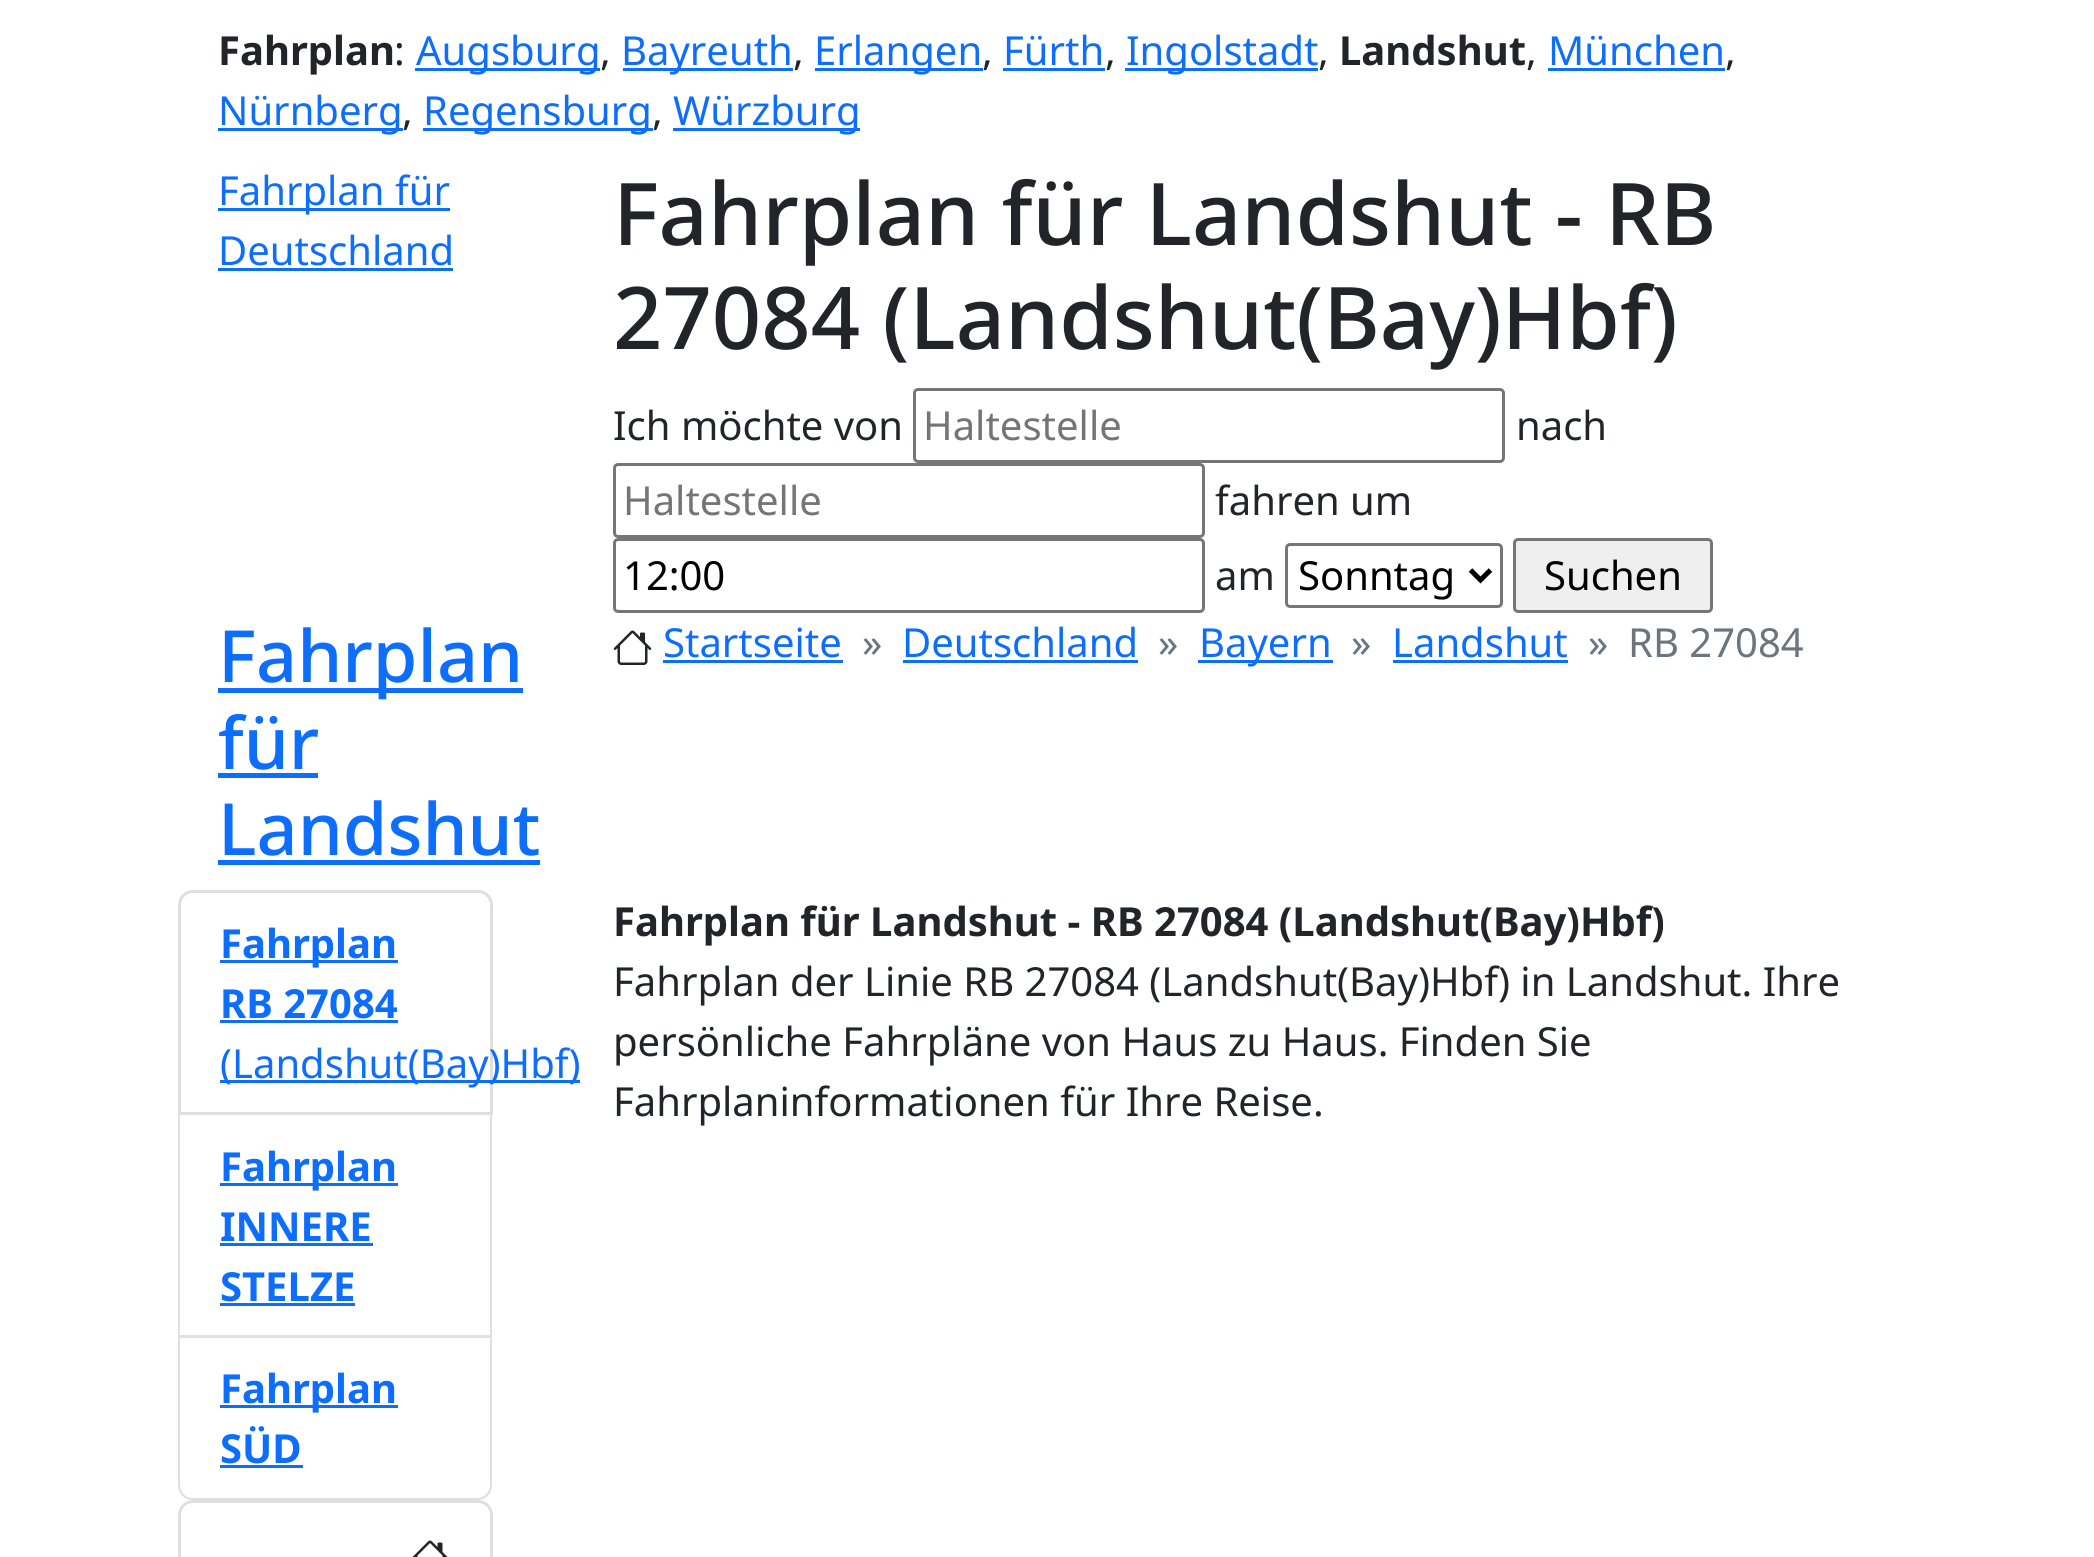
import math
import cairo


def use_color(cr, r, g, b):
  cr.set_source_rgb(r / 255, g / 255, b / 255)

def text(cr, x, y, s, family, size, color, bold=False, italic=False):
  cr.select_font_face(family, cairo.FONT_SLANT_ITALIC if italic else cairo.FONT_SLANT_NORMAL, cairo.FONT_WEIGHT_BOLD if bold else cairo.FONT_WEIGHT_NORMAL)
  cr.set_font_size(size)
  use_color(cr, *color)
  cr.move_to(x, y)
  cr.show_text(s)

def box(cr, x, y, w, h, *color):
  use_color(cr, *color)
  cr.rectangle(x, y, w, h)
  cr.fill()

def round_rect(cr, x, y, w, h, r):
  cr.new_sub_path()
  for i, (u, v) in enumerate([(x + w - r, y + h - r), (x + r, y + h - r), (x + r, y + r), (x + w - r, y + r)]):
    cr.arc(u, v, r, i * math.pi / 2, (i + 1) * math.pi / 2)
  cr.close_path()

def picture(cr, path, x, y, w, h):
  cr.save()
  cr.set_source_surface(cairo.ImageSurface.create_from_png(path), x, y)
  cr.rectangle(x, y, w, h)
  cr.fill()
  cr.restore()

def draw(cr):
  use_color(cr, 255, 255, 255)
  cr.paint()
  box(cr, 415, 68, 185, 3, 13, 110, 253)
  box(cr, 623, 68, 170, 3, 13, 110, 253)
  box(cr, 815, 68, 168, 3, 13, 110, 253)
  box(cr, 1003, 68, 102, 3, 13, 110, 253)
  box(cr, 1125, 68, 193, 3, 13, 110, 253)
  box(cr, 1548, 68, 177, 3, 13, 110, 253)
  box(cr, 218, 128, 185, 3, 13, 110, 253)
  box(cr, 423, 128, 230, 3, 13, 110, 253)
  box(cr, 673, 128, 187, 3, 13, 110, 253)
  box(cr, 218, 208, 232, 3, 13, 110, 253)
  box(cr, 218, 268, 235, 3, 13, 110, 253)
  round_rect(cr, 914.5, 389.5, 589, 72, 3.5)
  use_color(cr, 118, 118, 118)
  cr.set_line_width(3)
  cr.stroke()
  round_rect(cr, 614.5, 464.5, 589, 72, 3.5)
  cr.stroke()
  round_rect(cr, 614.5, 539.5, 589, 72, 3.5)
  cr.stroke()
  round_rect(cr, 1286.5, 544.5, 215, 62, 3.5)
  cr.stroke()
  cr.new_path()
  cr.move_to(1470.5, 570)
  cr.line_to(1480.5, 580)
  cr.line_to(1490.5, 570)
  use_color(cr, 0, 0, 0)
  cr.set_line_width(5)
  cr.stroke()
  use_color(cr, 239, 239, 239)
  round_rect(cr, 1514.5, 539.5, 197, 72, 3.5)
  cr.fill_preserve()
  use_color(cr, 118, 118, 118)
  cr.set_line_width(3)
  cr.stroke()
  box(cr, 218, 688, 305, 5, 13, 110, 253)
  box(cr, 218, 773, 100, 5, 13, 110, 253)
  box(cr, 218, 860, 322, 5, 13, 110, 253)
  picture(cr, "img_01.png", 613, 630, 39, 35)
  box(cr, 663, 660, 180, 3, 13, 110, 253)
  box(cr, 903, 660, 235, 3, 13, 110, 253)
  box(cr, 1198, 660, 135, 3, 13, 110, 253)
  box(cr, 1393, 660, 175, 3, 13, 110, 253)
  cr.new_path()
  cr.move_to(193, 891.5)
  cr.line_to(478, 891.5)
  cr.curve_to(485.5, 891.5, 491.5, 897.5, 491.5, 905)
  cr.line_to(491.5, 1113.5)
  cr.line_to(179.5, 1113.5)
  cr.line_to(179.5, 905)
  cr.curve_to(179.5, 897.5, 185.5, 891.5, 193, 891.5)
  cr.close_path()
  use_color(cr, 223, 223, 223)
  cr.stroke()
  box(cr, 220, 960, 178, 3, 13, 110, 253)
  box(cr, 220, 1020, 178, 3, 13, 110, 253)
  box(cr, 220, 1080, 360, 3, 13, 110, 253)
  use_color(cr, 223, 223, 223)
  cr.new_path()
  cr.move_to(492, 1115)
  cr.line_to(492, 1338)
  cr.line_to(490, 1335)
  cr.line_to(490, 1115)
  cr.close_path()
  cr.fill()
  cr.set_source_rgba(0, 0, 0, 0.12)
  cr.new_path()
  cr.move_to(492, 1338)
  cr.line_to(178, 1338)
  cr.line_to(180, 1335)
  cr.line_to(490, 1335)
  cr.close_path()
  cr.fill()
  cr.new_path()
  cr.move_to(178, 1338)
  cr.line_to(178, 1115)
  cr.line_to(180, 1115)
  cr.line_to(180, 1335)
  cr.close_path()
  cr.fill()
  box(cr, 220, 1183, 178, 3, 13, 110, 253)
  box(cr, 220, 1243, 153, 3, 13, 110, 253)
  box(cr, 220, 1303, 135, 3, 13, 110, 253)
  use_color(cr, 223, 223, 223)
  cr.set_fill_rule(cairo.FILL_RULE_EVEN_ODD)
  cr.new_path()
  cr.move_to(178, 1338)
  cr.line_to(492, 1338)
  cr.line_to(492, 1485)
  cr.curve_to(492, 1493, 486, 1500, 478, 1500)
  cr.line_to(192, 1500)
  cr.curve_to(184, 1500, 178, 1493, 178, 1485)
  cr.close_path()
  cr.move_to(180, 1338)
  cr.line_to(490, 1338)
  cr.line_to(490, 1485)
  cr.curve_to(490, 1492, 484, 1498, 478, 1498)
  cr.line_to(192, 1498)
  cr.curve_to(186, 1498, 180, 1492, 180, 1485)
  cr.close_path()
  cr.fill()
  box(cr, 220, 1405, 178, 3, 13, 110, 253)
  box(cr, 220, 1465, 83, 3, 13, 110, 253)
  cr.new_path()
  cr.move_to(193, 1501.5)
  cr.line_to(478, 1501.5)
  cr.curve_to(485.5, 1501.5, 491.5, 1507.5, 491.5, 1515)
  cr.line_to(491.5, 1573.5)
  cr.line_to(179.5, 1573.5)
  cr.line_to(179.5, 1515)
  cr.curve_to(179.5, 1507.5, 185.5, 1501.5, 193, 1501.5)
  cr.close_path()
  use_color(cr, 223, 223, 223)
  cr.stroke()
  picture(cr, "img_02.png", 412, 1540, 36, 17)
  text(cr, 218, 65, "Fahrplan", "Noto Sans", 40, (33, 37, 41), bold=True)
  text(cr, 394, 65, ":", "Noto Sans", 40, (33, 37, 41))
  text(cr, 416, 65, "Augsburg", "Noto Sans", 40, (13, 110, 253))
  text(cr, 600, 65, ",", "Noto Sans", 40, (33, 37, 41))
  text(cr, 621, 65, "Bayreuth", "Noto Sans", 40, (13, 110, 253))
  text(cr, 793, 65, ",", "Noto Sans", 40, (33, 37, 41))
  text(cr, 814, 65, "Erlangen", "Noto Sans", 40, (13, 110, 253))
  text(cr, 982, 65, ",", "Noto Sans", 40, (33, 37, 41))
  text(cr, 1003, 65, "Fürth", "Noto Sans", 40, (13, 110, 253))
  text(cr, 1105, 65, ",", "Noto Sans", 40, (33, 37, 41))
  text(cr, 1126, 65, "Ingolstadt", "Noto Sans", 40, (13, 110, 253))
  text(cr, 1318, 65, ",", "Noto Sans", 40, (33, 37, 41))
  text(cr, 1339, 65, "Landshut", "Noto Sans", 40, (33, 37, 41), bold=True)
  text(cr, 1526, 65, ",", "Noto Sans", 40, (33, 37, 41))
  text(cr, 1548, 65, "München", "Noto Sans", 40, (13, 110, 253))
  text(cr, 1725, 65, ",", "Noto Sans", 40, (33, 37, 41))
  text(cr, 218, 125, "Nürnberg", "Noto Sans", 40, (13, 110, 253))
  text(cr, 402, 125, ",", "Noto Sans", 40, (33, 37, 41))
  text(cr, 423, 125, "Regensburg", "Noto Sans", 40, (13, 110, 253))
  text(cr, 652, 125, ",", "Noto Sans", 40, (33, 37, 41))
  text(cr, 673, 125, "Würzburg", "Noto Sans", 40, (13, 110, 253))
  text(cr, 218, 205, "Fahrplan für", "Noto Sans", 40, (13, 110, 253))
  text(cr, 218, 265, "Deutschland", "Noto Sans", 40, (13, 110, 253))
  text(cr, 613, 245, "Fahrplan für Landshut - RB", "Noto Sans Medium", 86.4, (33, 37, 41))
  text(cr, 613, 349, "27084 (Landshut(Bay)Hbf)", "Noto Sans Medium", 86.4, (33, 37, 41))
  text(cr, 613, 440, "Ich möchte von", "Noto Sans", 40, (33, 37, 41))
  text(cr, 923, 440, "Haltestelle", "Noto Sans", 40, (117, 117, 117))
  text(cr, 1516, 440, "nach", "Noto Sans", 40, (33, 37, 41))
  text(cr, 623, 515, "Haltestelle", "Noto Sans", 40, (117, 117, 117))
  text(cr, 1215, 515, "fahren um", "Noto Sans", 40, (33, 37, 41))
  text(cr, 623, 590, "12:00", "Noto Sans", 40, (0, 0, 0))
  text(cr, 1215, 590, "am", "Noto Sans", 40, (33, 37, 41))
  text(cr, 1298, 590, "Sonntag", "Noto Sans", 40, (0, 0, 0))
  text(cr, 1544, 590, "Suchen", "Noto Sans", 40, (0, 0, 0))
  text(cr, 218, 682, "Fahrplan", "Noto Sans Medium", 72, (13, 110, 253))
  text(cr, 218, 769, "für", "Noto Sans Medium", 72, (13, 110, 253))
  text(cr, 218, 855, "Landshut", "Noto Sans Medium", 72, (13, 110, 253))
  text(cr, 663, 657, "Startseite", "Noto Sans", 40, (13, 110, 253))
  text(cr, 862, 657, "»", "Noto Sans", 40, (108, 117, 125))
  text(cr, 902, 657, "Deutschland", "Noto Sans", 40, (13, 110, 253))
  text(cr, 1158, 657, "»", "Noto Sans", 40, (108, 117, 125))
  text(cr, 1199, 657, "Bayern", "Noto Sans", 40, (13, 110, 253))
  text(cr, 1351, 657, "»", "Noto Sans", 40, (108, 117, 125))
  text(cr, 1392, 657, "Landshut", "Noto Sans", 40, (13, 110, 253))
  text(cr, 1588, 657, "»", "Noto Sans", 40, (108, 117, 125))
  text(cr, 1628, 657, "RB 27084", "Noto Sans", 40, (108, 117, 125))
  text(cr, 220, 958, "Fahrplan", "Noto Sans", 40, (13, 110, 253), bold=True)
  text(cr, 220, 1018, "RB 27084", "Noto Sans", 40, (13, 110, 253), bold=True)
  text(cr, 220, 1078, "(Landshut(Bay)Hbf)", "Noto Sans", 40, (13, 110, 253))
  text(cr, 220, 1181, "Fahrplan", "Noto Sans", 40, (13, 110, 253), bold=True)
  text(cr, 220, 1241, "INNERE", "Noto Sans", 40, (13, 110, 253), bold=True)
  text(cr, 220, 1301, "STELZE", "Noto Sans", 40, (13, 110, 253), bold=True)
  text(cr, 220, 1403, "Fahrplan", "Noto Sans", 40, (13, 110, 253), bold=True)
  text(cr, 220, 1463, "SÜD", "Noto Sans", 40, (13, 110, 253), bold=True)
  text(cr, 613, 936, "Fahrplan für Landshut - RB 27084 (Landshut(Bay)Hbf)", "Noto Sans", 40, (33, 37, 41), bold=True)
  text(cr, 613, 996, "Fahrplan der Linie RB 27084 (Landshut(Bay)Hbf) in Landshut. Ihre", "Noto Sans", 40, (33, 37, 41))
  text(cr, 613, 1056, "persönliche Fahrpläne von Haus zu Haus. Finden Sie", "Noto Sans", 40, (33, 37, 41))
  text(cr, 613, 1116, "Fahrplaninformationen für Ihre Reise.", "Noto Sans", 40, (33, 37, 41))


surface = cairo.ImageSurface(cairo.FORMAT_RGB24, 2094, 1557)
cr = cairo.Context(surface)
options = cairo.FontOptions()
options.set_hint_metrics(cairo.HINT_METRICS_OFF)
options.set_hint_style(cairo.HINT_STYLE_NONE)
cr.set_font_options(options)
cr.set_miter_limit(4)
draw(cr)
surface.write_to_png("out.png")
